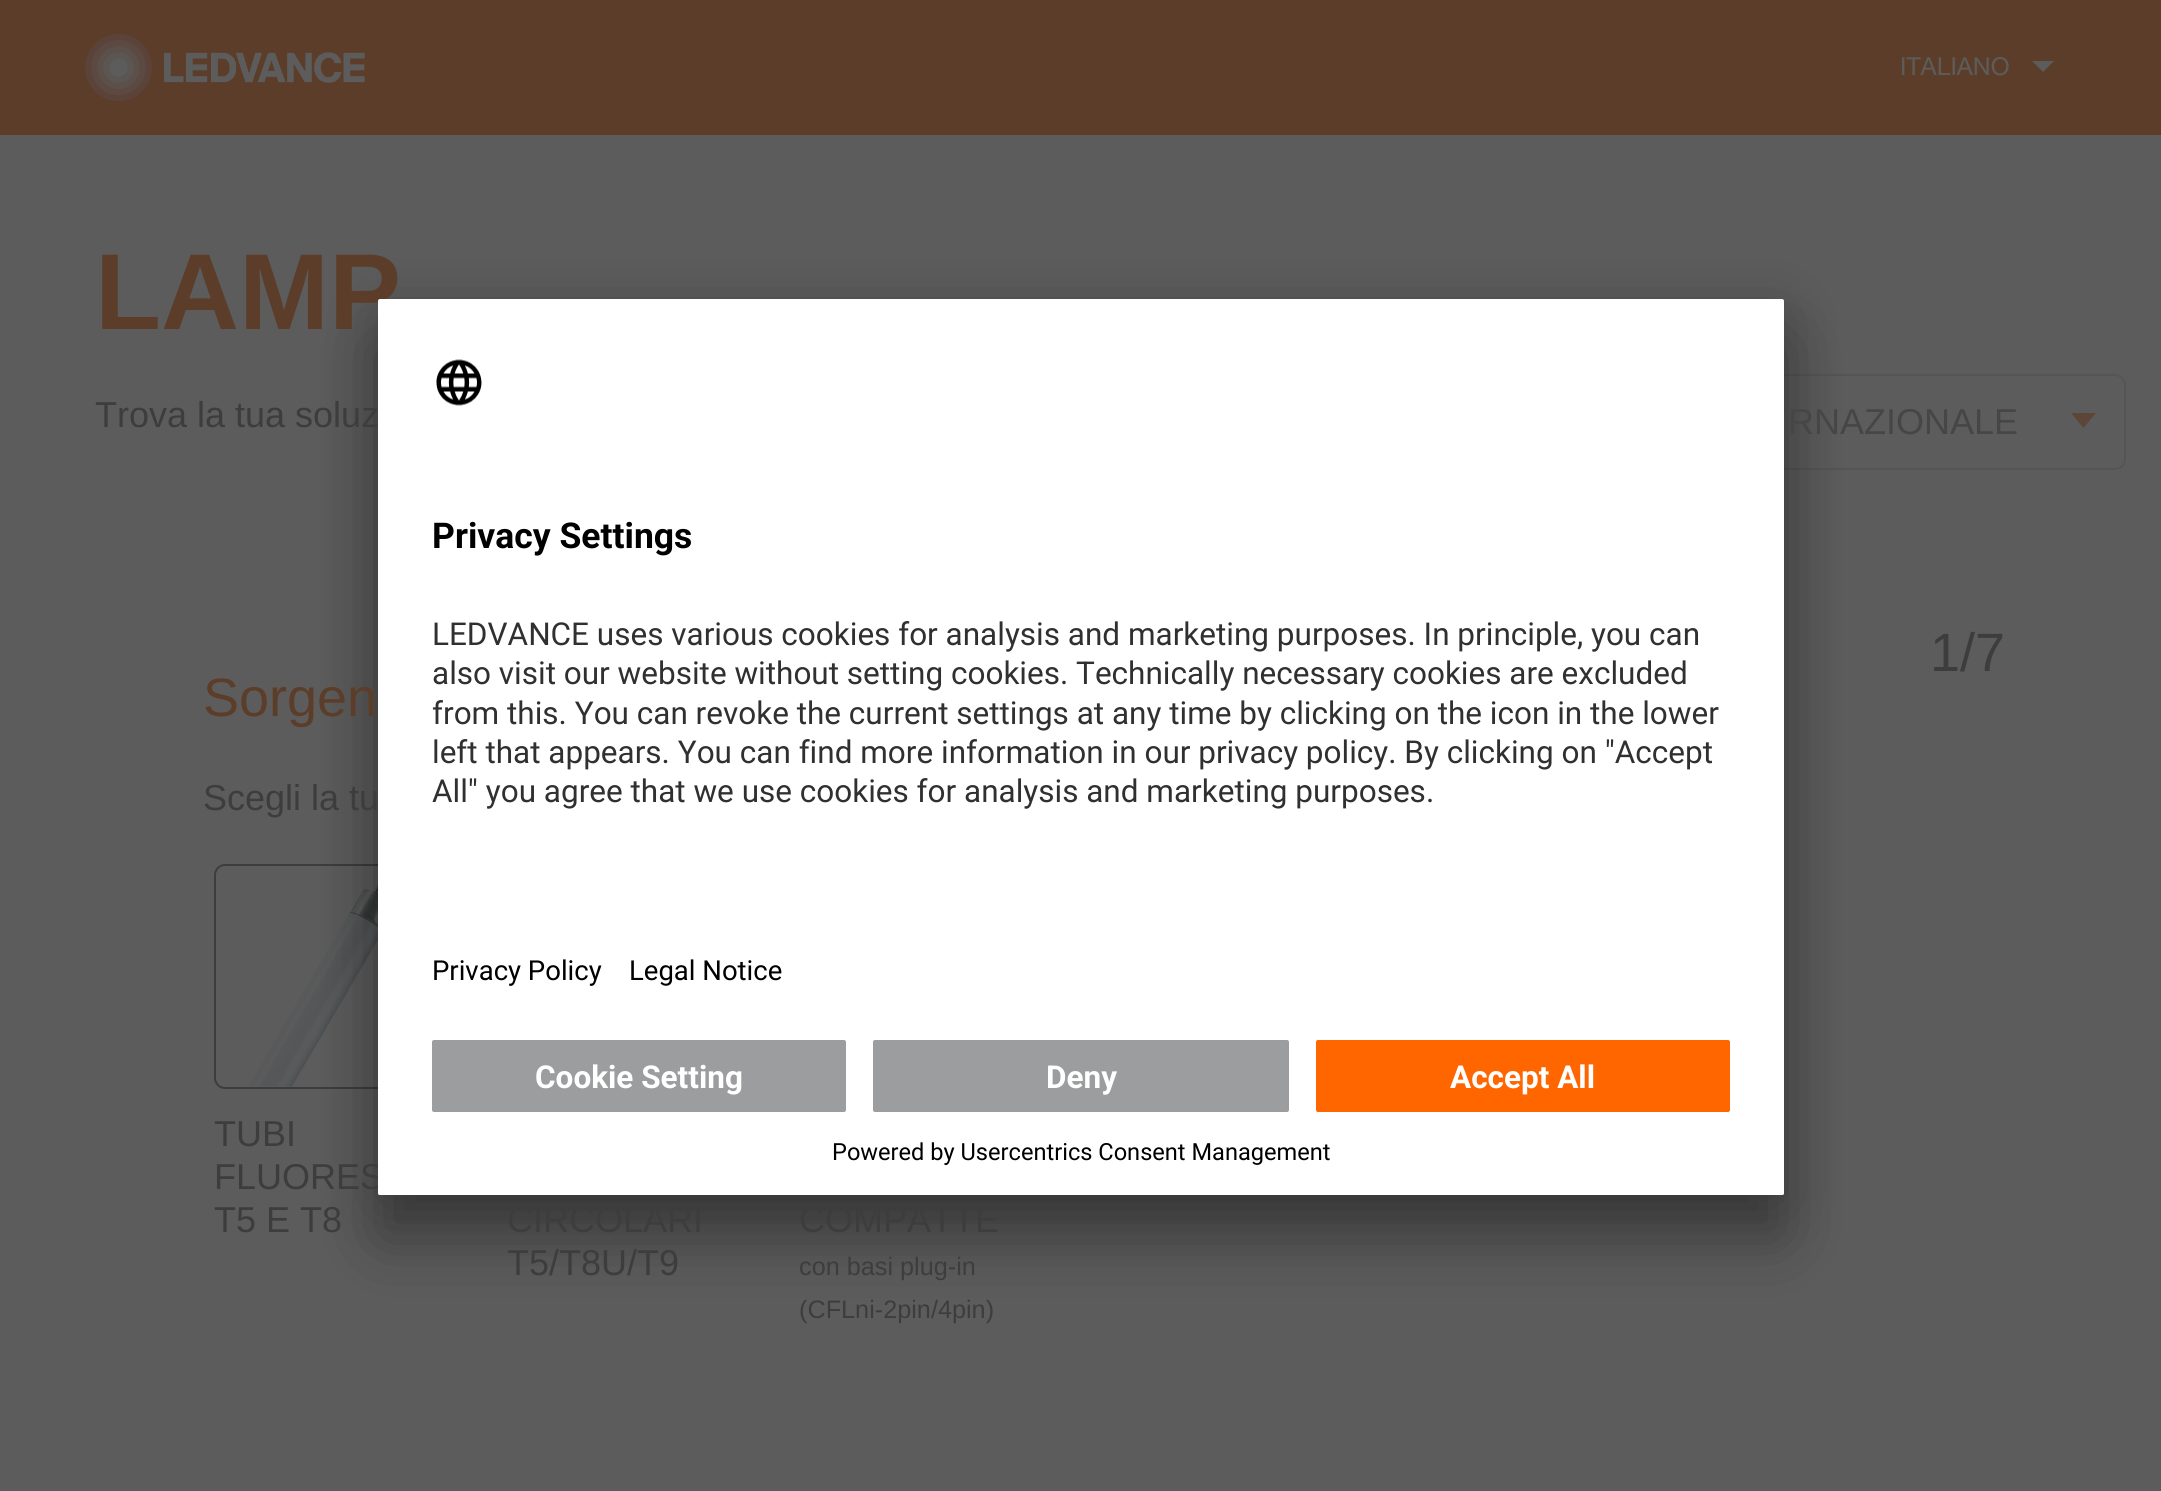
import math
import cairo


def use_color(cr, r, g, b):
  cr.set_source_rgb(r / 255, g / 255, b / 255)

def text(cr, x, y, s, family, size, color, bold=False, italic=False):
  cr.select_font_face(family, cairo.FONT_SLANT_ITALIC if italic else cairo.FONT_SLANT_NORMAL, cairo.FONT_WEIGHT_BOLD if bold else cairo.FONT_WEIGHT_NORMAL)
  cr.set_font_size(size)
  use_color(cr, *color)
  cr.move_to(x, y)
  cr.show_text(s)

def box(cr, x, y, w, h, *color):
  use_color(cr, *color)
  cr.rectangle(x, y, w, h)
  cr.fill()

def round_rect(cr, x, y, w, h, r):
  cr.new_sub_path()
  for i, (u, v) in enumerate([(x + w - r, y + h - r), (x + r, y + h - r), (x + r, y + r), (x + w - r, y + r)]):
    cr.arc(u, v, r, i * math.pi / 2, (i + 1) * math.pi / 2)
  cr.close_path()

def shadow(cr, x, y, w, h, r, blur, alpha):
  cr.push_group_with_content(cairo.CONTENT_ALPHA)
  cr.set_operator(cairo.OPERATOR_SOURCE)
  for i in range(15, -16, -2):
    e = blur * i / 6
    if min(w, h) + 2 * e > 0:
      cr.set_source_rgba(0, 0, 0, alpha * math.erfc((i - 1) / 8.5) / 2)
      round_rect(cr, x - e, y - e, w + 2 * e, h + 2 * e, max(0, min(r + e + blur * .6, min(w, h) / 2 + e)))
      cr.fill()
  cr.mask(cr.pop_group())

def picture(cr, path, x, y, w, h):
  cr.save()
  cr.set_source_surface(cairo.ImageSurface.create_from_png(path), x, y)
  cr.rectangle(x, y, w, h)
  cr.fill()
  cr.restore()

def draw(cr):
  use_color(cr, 92, 92, 92)
  cr.paint()
  box(cr, 0, 0, 2161, 135, 92, 61, 41)
  picture(cr, "img_01.png", 85, 34, 280, 67)
  use_color(cr, 92, 92, 92)
  cr.new_path()
  cr.move_to(2032, 61)
  cr.line_to(2054, 61)
  cr.line_to(2043, 72)
  cr.close_path()
  cr.fill()
  use_color(cr, 92, 70, 56)
  cr.set_fill_rule(cairo.FILL_RULE_EVEN_ODD)
  cr.new_path()
  cr.move_to(2071, 413)
  cr.line_to(2083.5, 428)
  cr.line_to(2096, 413)
  cr.close_path()
  cr.fill()
  round_rect(cr, 1677, 375, 448, 94, 10)
  use_color(cr, 85, 85, 85)
  cr.stroke()
  round_rect(cr, 215, 865, 223, 223, 10)
  use_color(cr, 61, 61, 61)
  cr.stroke()
  picture(cr, "img_03.png", 216, 873, 162, 214)
  use_color(cr, 0, 0, 0)
  shadow(cr, 378, 344, 1406, 896, 2, 31.5, 0.3)
  shadow(cr, 378, 311, 1406, 895, 2, 29, 0.22)
  text(cr, 1900, 75, "ITALIANO", "Helvetica Neue", 24.75, (92, 92, 92))
  text(cr, 95, 329, "LAMP", "Liberation Sans", 108, (92, 61, 41), bold=True)
  text(cr, 95, 427, "Trova la tua soluz", "Liberation Sans", 36, (61, 61, 61))
  text(cr, 1788, 434, "RNAZIONALE", "Liberation Sans", 36, (70, 70, 70))
  text(cr, 1930, 671, "1/7", "Liberation Sans", 54, (61, 61, 61))
  text(cr, 203, 716, "Sorgen", "Liberation Sans", 54, (92, 61, 41))
  text(cr, 203, 810, "Scegli la tu", "Liberation Sans", 36, (61, 61, 61))
  text(cr, 214, 1146, "TUBI", "Liberation Sans", 36, (61, 61, 61))
  text(cr, 214, 1189, "FLUORES", "Liberation Sans", 36, (61, 61, 61))
  use_color(cr, 255, 255, 255)
  round_rect(cr, 378, 299, 1406, 896, 2)
  cr.fill()
  picture(cr, "img_02.png", 436, 359, 46, 47)
  text(cr, 629, 980, "Legal Notice", "Roboto", 27.5, (0, 0, 0))
  text(cr, 432, 980, "Privacy Policy", "Roboto", 27.5, (0, 0, 0))
  text(cr, 432, 802, "All\" you agree that we use cookies for analysis and marketing purposes.", "Roboto", 31.5, (48, 48, 48))
  text(cr, 432, 763, "left that appears. You can find more information in our privacy policy. By clicking on \"Accept", "Roboto", 31.5, (48, 48, 48))
  text(cr, 432, 724, "from this. You can revoke the current settings at any time by clicking on the icon in the lower", "Roboto", 31.5, (48, 48, 48))
  text(cr, 432, 684, "also visit our website without setting cookies. Technically necessary cookies are excluded", "Roboto", 31.5, (48, 48, 48))
  text(cr, 432, 645, "LEDVANCE uses various cookies for analysis and marketing purposes. In principle, you can", "Roboto", 31.5, (48, 48, 48))
  text(cr, 432, 548, "Privacy Settings", "Roboto", 35.5, (0, 0, 0), bold=True)
  use_color(cr, 255, 255, 255)
  cr.new_path()
  cr.move_to(378, 1022)
  cr.line_to(1784, 1022)
  cr.line_to(1784, 1193)
  cr.curve_to(1784, 1194, 1783, 1195, 1782, 1195)
  cr.line_to(380, 1195)
  cr.curve_to(379, 1195, 378, 1194, 378, 1193)
  cr.close_path()
  cr.fill()
  text(cr, 832, 1160, "Powered by Usercentrics Consent Management", "Roboto", 23.6, (0, 0, 0))
  use_color(cr, 255, 102, 0)
  round_rect(cr, 1316, 1040, 414, 72, 2)
  cr.fill()
  text(cr, 1450, 1088, "Accept All", "Roboto", 31.5, (255, 255, 255), bold=True)
  use_color(cr, 156, 157, 159)
  round_rect(cr, 873, 1040, 416, 72, 2)
  cr.fill()
  text(cr, 1046, 1088, "Deny", "Roboto", 31.5, (255, 255, 255), bold=True)
  use_color(cr, 156, 157, 159)
  round_rect(cr, 432, 1040, 414, 72, 2)
  cr.fill()
  text(cr, 535, 1088, "Cookie Setting", "Roboto", 31.5, (255, 255, 255), bold=True)
  text(cr, 214, 1232, "T5 E T8", "Liberation Sans", 36, (61, 61, 61))
  text(cr, 507, 1232, "CIRCOLARI", "Liberation Sans", 36, (61, 61, 61))
  text(cr, 507, 1275, "T5/T8U/T9", "Liberation Sans", 36, (61, 61, 61))
  text(cr, 799, 1232, "COMPATTE", "Liberation Sans", 36, (61, 61, 61))
  text(cr, 799, 1275, "con basi plug-in", "Liberation Sans", 25.25, (61, 61, 61))
  text(cr, 799, 1318, "(CFLni-2pin/4pin)", "Liberation Sans", 25.25, (61, 61, 61))


surface = cairo.ImageSurface(cairo.FORMAT_RGB24, 2161, 1491)
cr = cairo.Context(surface)
options = cairo.FontOptions()
options.set_hint_metrics(cairo.HINT_METRICS_OFF)
options.set_hint_style(cairo.HINT_STYLE_NONE)
cr.set_font_options(options)
cr.set_miter_limit(4)
draw(cr)
surface.write_to_png("out.png")
